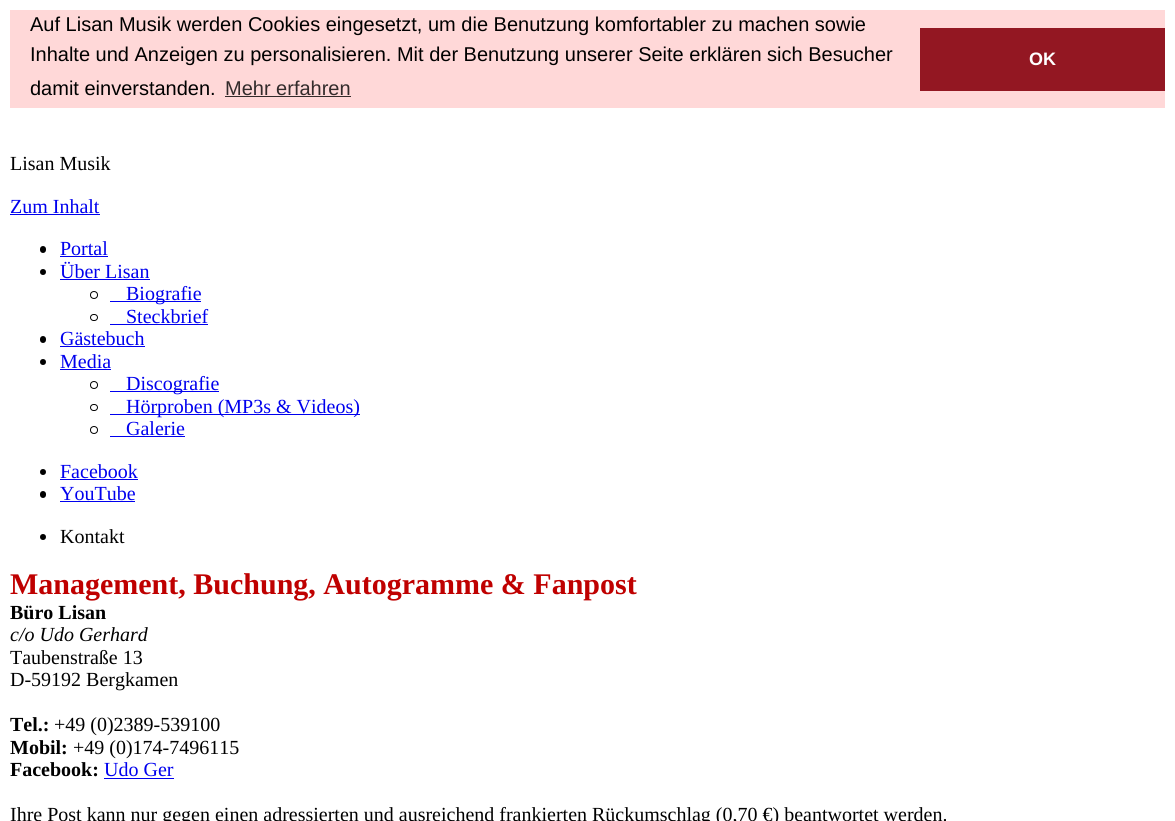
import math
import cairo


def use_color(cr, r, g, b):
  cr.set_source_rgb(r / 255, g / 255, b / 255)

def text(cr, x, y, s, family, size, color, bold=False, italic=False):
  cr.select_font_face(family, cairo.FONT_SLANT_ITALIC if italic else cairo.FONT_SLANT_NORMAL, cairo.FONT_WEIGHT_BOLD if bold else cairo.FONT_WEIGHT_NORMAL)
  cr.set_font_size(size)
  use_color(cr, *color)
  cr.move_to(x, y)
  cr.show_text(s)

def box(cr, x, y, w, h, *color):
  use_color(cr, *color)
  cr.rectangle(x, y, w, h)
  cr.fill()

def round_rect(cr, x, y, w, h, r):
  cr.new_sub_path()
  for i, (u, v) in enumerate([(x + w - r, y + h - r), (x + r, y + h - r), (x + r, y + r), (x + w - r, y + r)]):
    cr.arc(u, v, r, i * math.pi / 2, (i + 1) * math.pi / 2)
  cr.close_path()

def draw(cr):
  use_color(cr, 255, 255, 255)
  cr.paint()
  box(cr, 10, 10, 1155, 98, 255, 216, 216)
  box(cr, 225, 96, 126, 1, 51, 43, 43)
  box(cr, 920, 28, 245, 63, 147, 23, 34)
  box(cr, 10, 214, 90, 1, 0, 0, 238)
  use_color(cr, 0, 0, 0)
  round_rect(cr, 40, 246, 6, 7, 3)
  cr.fill()
  box(cr, 60, 256, 48, 1, 0, 0, 238)
  use_color(cr, 0, 0, 0)
  cr.arc(43, 272, 3, 0, 2 * math.pi)
  cr.fill()
  box(cr, 60, 279, 90, 1, 0, 0, 238)
  cr.arc(94, 295, 3.5, 0, 2 * math.pi)
  use_color(cr, 0, 0, 0)
  cr.set_line_width(1)
  cr.stroke()
  box(cr, 110, 301, 91, 1, 0, 0, 238)
  round_rect(cr, 90.5, 314.5, 7, 6, 3)
  use_color(cr, 0, 0, 0)
  cr.stroke()
  box(cr, 110, 324, 98, 1, 0, 0, 238)
  use_color(cr, 0, 0, 0)
  round_rect(cr, 40, 336, 6, 7, 3)
  cr.fill()
  box(cr, 60, 346, 85, 1, 0, 0, 238)
  use_color(cr, 0, 0, 0)
  cr.arc(43, 362, 3, 0, 2 * math.pi)
  cr.fill()
  box(cr, 60, 369, 51, 1, 0, 0, 238)
  cr.arc(94, 385, 3.5, 0, 2 * math.pi)
  use_color(cr, 0, 0, 0)
  cr.stroke()
  box(cr, 110, 391, 109, 1, 0, 0, 238)
  round_rect(cr, 90.5, 404.5, 7, 6, 3)
  use_color(cr, 0, 0, 0)
  cr.stroke()
  box(cr, 110, 414, 250, 1, 0, 0, 238)
  cr.arc(94, 430, 3.5, 0, 2 * math.pi)
  use_color(cr, 0, 0, 0)
  cr.stroke()
  box(cr, 110, 436, 75, 1, 0, 0, 238)
  use_color(cr, 0, 0, 0)
  cr.arc(43, 472, 3, 0, 2 * math.pi)
  cr.fill()
  box(cr, 60, 479, 78, 1, 0, 0, 238)
  use_color(cr, 0, 0, 0)
  round_rect(cr, 40, 491, 6, 7, 3)
  cr.fill()
  box(cr, 60, 501, 75, 1, 0, 0, 238)
  use_color(cr, 0, 0, 0)
  cr.arc(43, 537, 3, 0, 2 * math.pi)
  cr.fill()
  box(cr, 104, 778, 70, 1, 0, 0, 238)
  text(cr, 30, 31, "Auf Lisan Musik werden Cookies eingesetzt, um die Benutzung komfortabler zu machen sowie", "Liberation Sans", 20, (0, 0, 0))
  text(cr, 30, 61, "Inhalte und Anzeigen zu personalisieren. Mit der Benutzung unserer Seite erklären sich Besucher", "Liberation Sans", 20, (0, 0, 0))
  text(cr, 30, 95, "damit einverstanden.", "Liberation Sans", 20, (0, 0, 0))
  text(cr, 225, 95, "Mehr erfahren", "Liberation Sans", 20, (51, 43, 43))
  text(cr, 1029, 65, "OK", "Liberation Sans", 18, (255, 255, 255), bold=True)
  text(cr, 10, 170, "Lisan Musik", "Liberation Serif", 20, (0, 0, 0))
  text(cr, 10, 213, "Zum Inhalt", "Liberation Serif", 20, (0, 0, 238))
  text(cr, 60, 255, "Portal", "Liberation Serif", 20, (0, 0, 238))
  text(cr, 60, 278, "Über Lisan", "Liberation Serif", 20, (0, 0, 238))
  text(cr, 126, 300, "Biografie", "Liberation Serif", 20, (0, 0, 238))
  text(cr, 126, 323, "Steckbrief", "Liberation Serif", 20, (0, 0, 238))
  text(cr, 60, 345, "Gästebuch", "Liberation Serif", 20, (0, 0, 238))
  text(cr, 60, 368, "Media", "Liberation Serif", 20, (0, 0, 238))
  text(cr, 126, 390, "Discografie", "Liberation Serif", 20, (0, 0, 238))
  text(cr, 126, 413, "Hörproben (MP3s & Videos)", "Liberation Serif", 20, (0, 0, 238))
  text(cr, 126, 435, "Galerie", "Liberation Serif", 20, (0, 0, 238))
  text(cr, 60, 478, "Facebook", "Liberation Serif", 20, (0, 0, 238))
  text(cr, 60, 500, "YouTube", "Liberation Serif", 20, (0, 0, 238))
  text(cr, 60, 543, "Kontakt", "Liberation Serif", 20, (0, 0, 0))
  text(cr, 10, 594, "Management, Buchung, Autogramme & Fanpost", "Liberation Serif", 30, (191, 0, 0), bold=True)
  text(cr, 10, 619, "Büro Lisan", "Liberation Serif", 20, (0, 0, 0), bold=True)
  text(cr, 10, 641, "c/o Udo Gerhard", "Liberation Serif", 20, (0, 0, 0), italic=True)
  text(cr, 10, 664, "Taubenstraße 13", "Liberation Serif", 20, (0, 0, 0))
  text(cr, 10, 686, "D-59192 Bergkamen", "Liberation Serif", 20, (0, 0, 0))
  text(cr, 10, 731, "Tel.:", "Liberation Serif", 20, (0, 0, 0), bold=True)
  text(cr, 54, 731, "+49 (0)2389-539100", "Liberation Serif", 20, (0, 0, 0))
  text(cr, 10, 754, "Mobil:", "Liberation Serif", 20, (0, 0, 0), bold=True)
  text(cr, 73, 754, "+49 (0)174-7496115", "Liberation Serif", 20, (0, 0, 0))
  text(cr, 10, 776, "Facebook:", "Liberation Serif", 20, (0, 0, 0), bold=True)
  text(cr, 104, 776, "Udo Ger", "Liberation Serif", 20, (0, 0, 238))
  text(cr, 10, 821, "Ihre Post kann nur gegen einen adressierten und ausreichend frankierten Rückumschlag (0,70 €) beantwortet werden.", "Liberation Serif", 20, (0, 0, 0))


surface = cairo.ImageSurface(cairo.FORMAT_RGB24, 1175, 821)
cr = cairo.Context(surface)
options = cairo.FontOptions()
options.set_hint_metrics(cairo.HINT_METRICS_OFF)
options.set_hint_style(cairo.HINT_STYLE_NONE)
cr.set_font_options(options)
cr.set_miter_limit(4)
draw(cr)
surface.write_to_png("out.png")
